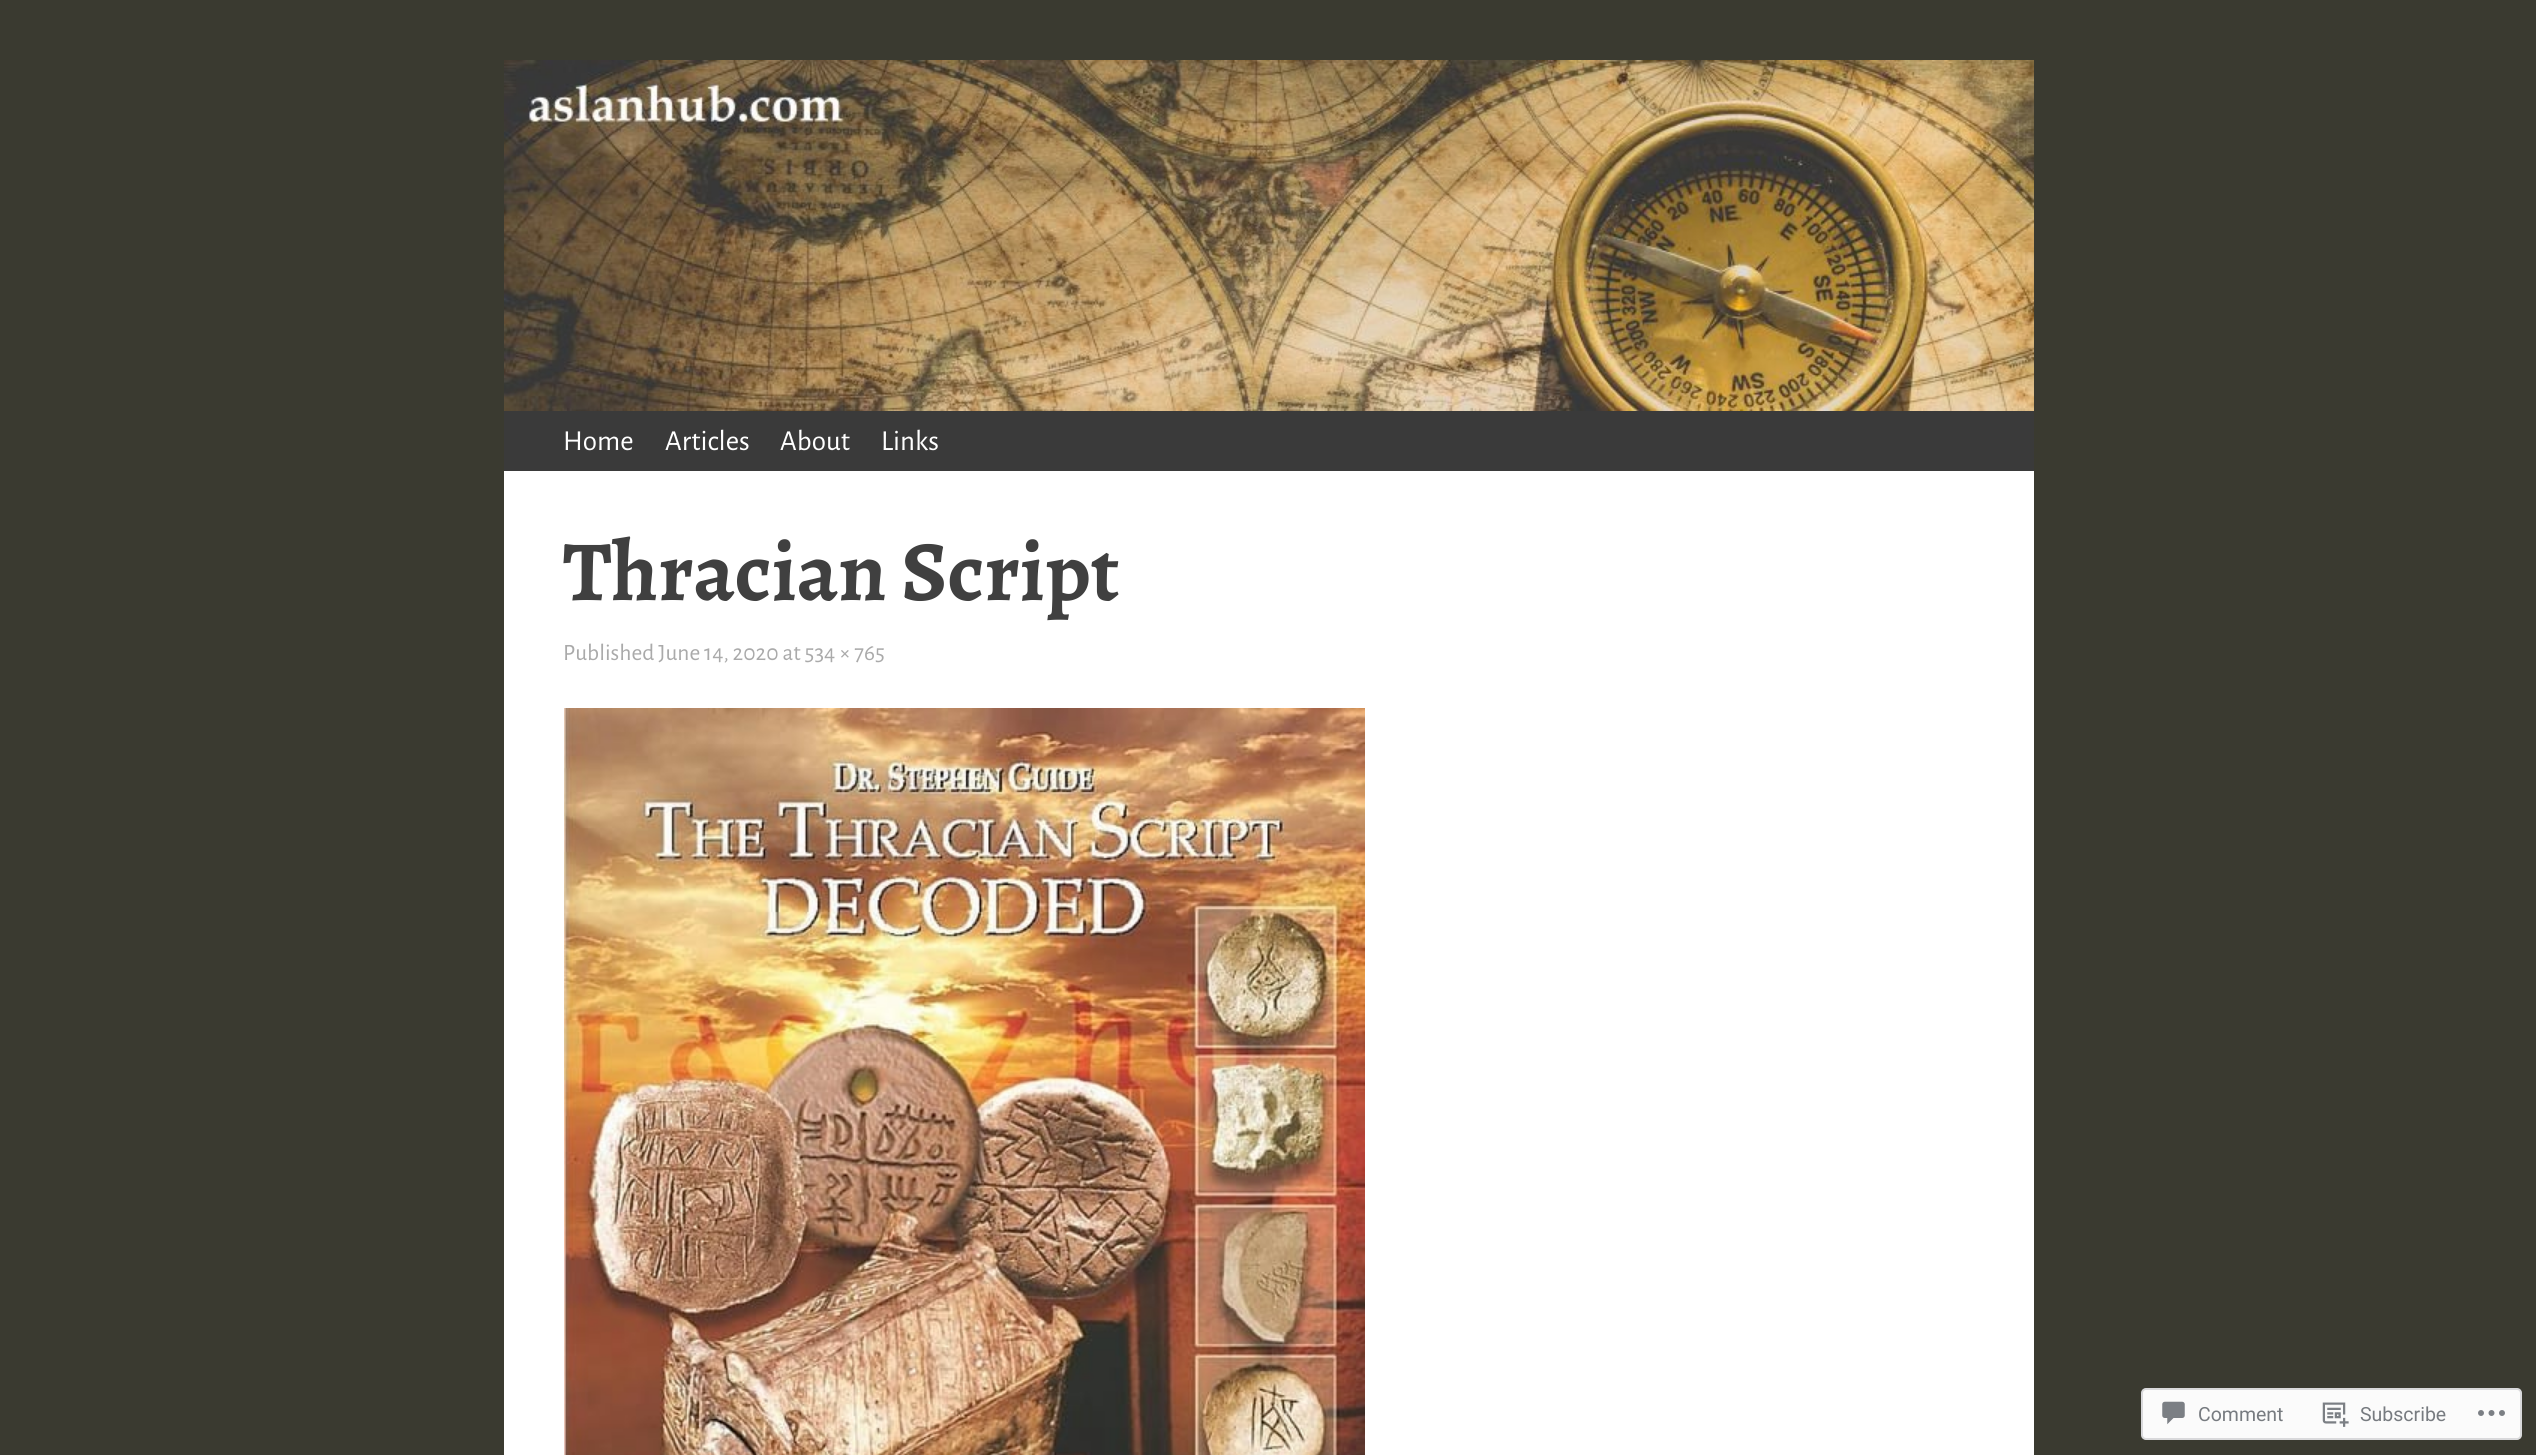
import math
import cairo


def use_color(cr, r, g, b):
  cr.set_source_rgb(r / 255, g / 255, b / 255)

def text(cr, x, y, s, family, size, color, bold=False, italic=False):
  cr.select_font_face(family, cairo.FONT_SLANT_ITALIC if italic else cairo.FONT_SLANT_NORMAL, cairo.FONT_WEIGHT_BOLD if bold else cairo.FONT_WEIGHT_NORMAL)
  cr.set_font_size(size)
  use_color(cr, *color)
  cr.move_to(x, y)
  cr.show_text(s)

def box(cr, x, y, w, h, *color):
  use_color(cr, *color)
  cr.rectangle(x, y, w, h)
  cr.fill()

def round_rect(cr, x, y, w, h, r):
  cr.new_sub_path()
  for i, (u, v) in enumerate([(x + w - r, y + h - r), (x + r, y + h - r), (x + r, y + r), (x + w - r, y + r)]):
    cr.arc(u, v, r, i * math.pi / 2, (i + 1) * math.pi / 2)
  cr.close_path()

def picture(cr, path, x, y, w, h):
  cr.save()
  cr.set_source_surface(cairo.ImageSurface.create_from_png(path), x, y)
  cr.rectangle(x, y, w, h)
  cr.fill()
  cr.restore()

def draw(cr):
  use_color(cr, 58, 58, 48)
  cr.paint()
  box(cr, 504, 471, 1530, 984, 255, 255, 255)
  picture(cr, "img_01.png", 504, 60, 1530, 351)
  box(cr, 504, 411, 1530, 60, 58, 58, 58)
  picture(cr, "img_02.png", 564, 708, 801, 747)
  use_color(cr, 251, 251, 251)
  round_rect(cr, 2142, 1389, 379, 50, 4)
  cr.fill_preserve()
  use_color(cr, 217, 217, 219)
  cr.stroke()
  picture(cr, "img_03.png", 2162, 1401, 23, 24)
  picture(cr, "img_04.png", 2322, 1402, 27, 25)
  picture(cr, "img_05.png", 2478, 1410, 27, 6)
  text(cr, 563, 450, "Home", "Alegreya Sans", 29, (255, 255, 255))
  text(cr, 665, 450, "Articles", "Alegreya Sans", 29, (255, 255, 255))
  text(cr, 780, 450, "About", "Alegreya Sans", 29, (255, 255, 255))
  text(cr, 881, 450, "Links", "Alegreya Sans", 29, (255, 255, 255))
  text(cr, 563, 600, "Thracian Script", "Alegreya", 85.75, (64, 64, 64), bold=True)
  text(cr, 563, 660, "Published June 14, 2020 at 534 × 765", "Alegreya Sans", 23.4, (170, 170, 170))
  text(cr, 2198, 1421, "Comment", "Roboto", 19.5, (119, 123, 128))
  text(cr, 2360, 1421, "Subscribe", "Roboto", 19.5, (119, 123, 128))


surface = cairo.ImageSurface(cairo.FORMAT_RGB24, 2536, 1455)
cr = cairo.Context(surface)
options = cairo.FontOptions()
options.set_hint_metrics(cairo.HINT_METRICS_OFF)
options.set_hint_style(cairo.HINT_STYLE_NONE)
cr.set_font_options(options)
cr.set_miter_limit(4)
draw(cr)
surface.write_to_png("out.png")
